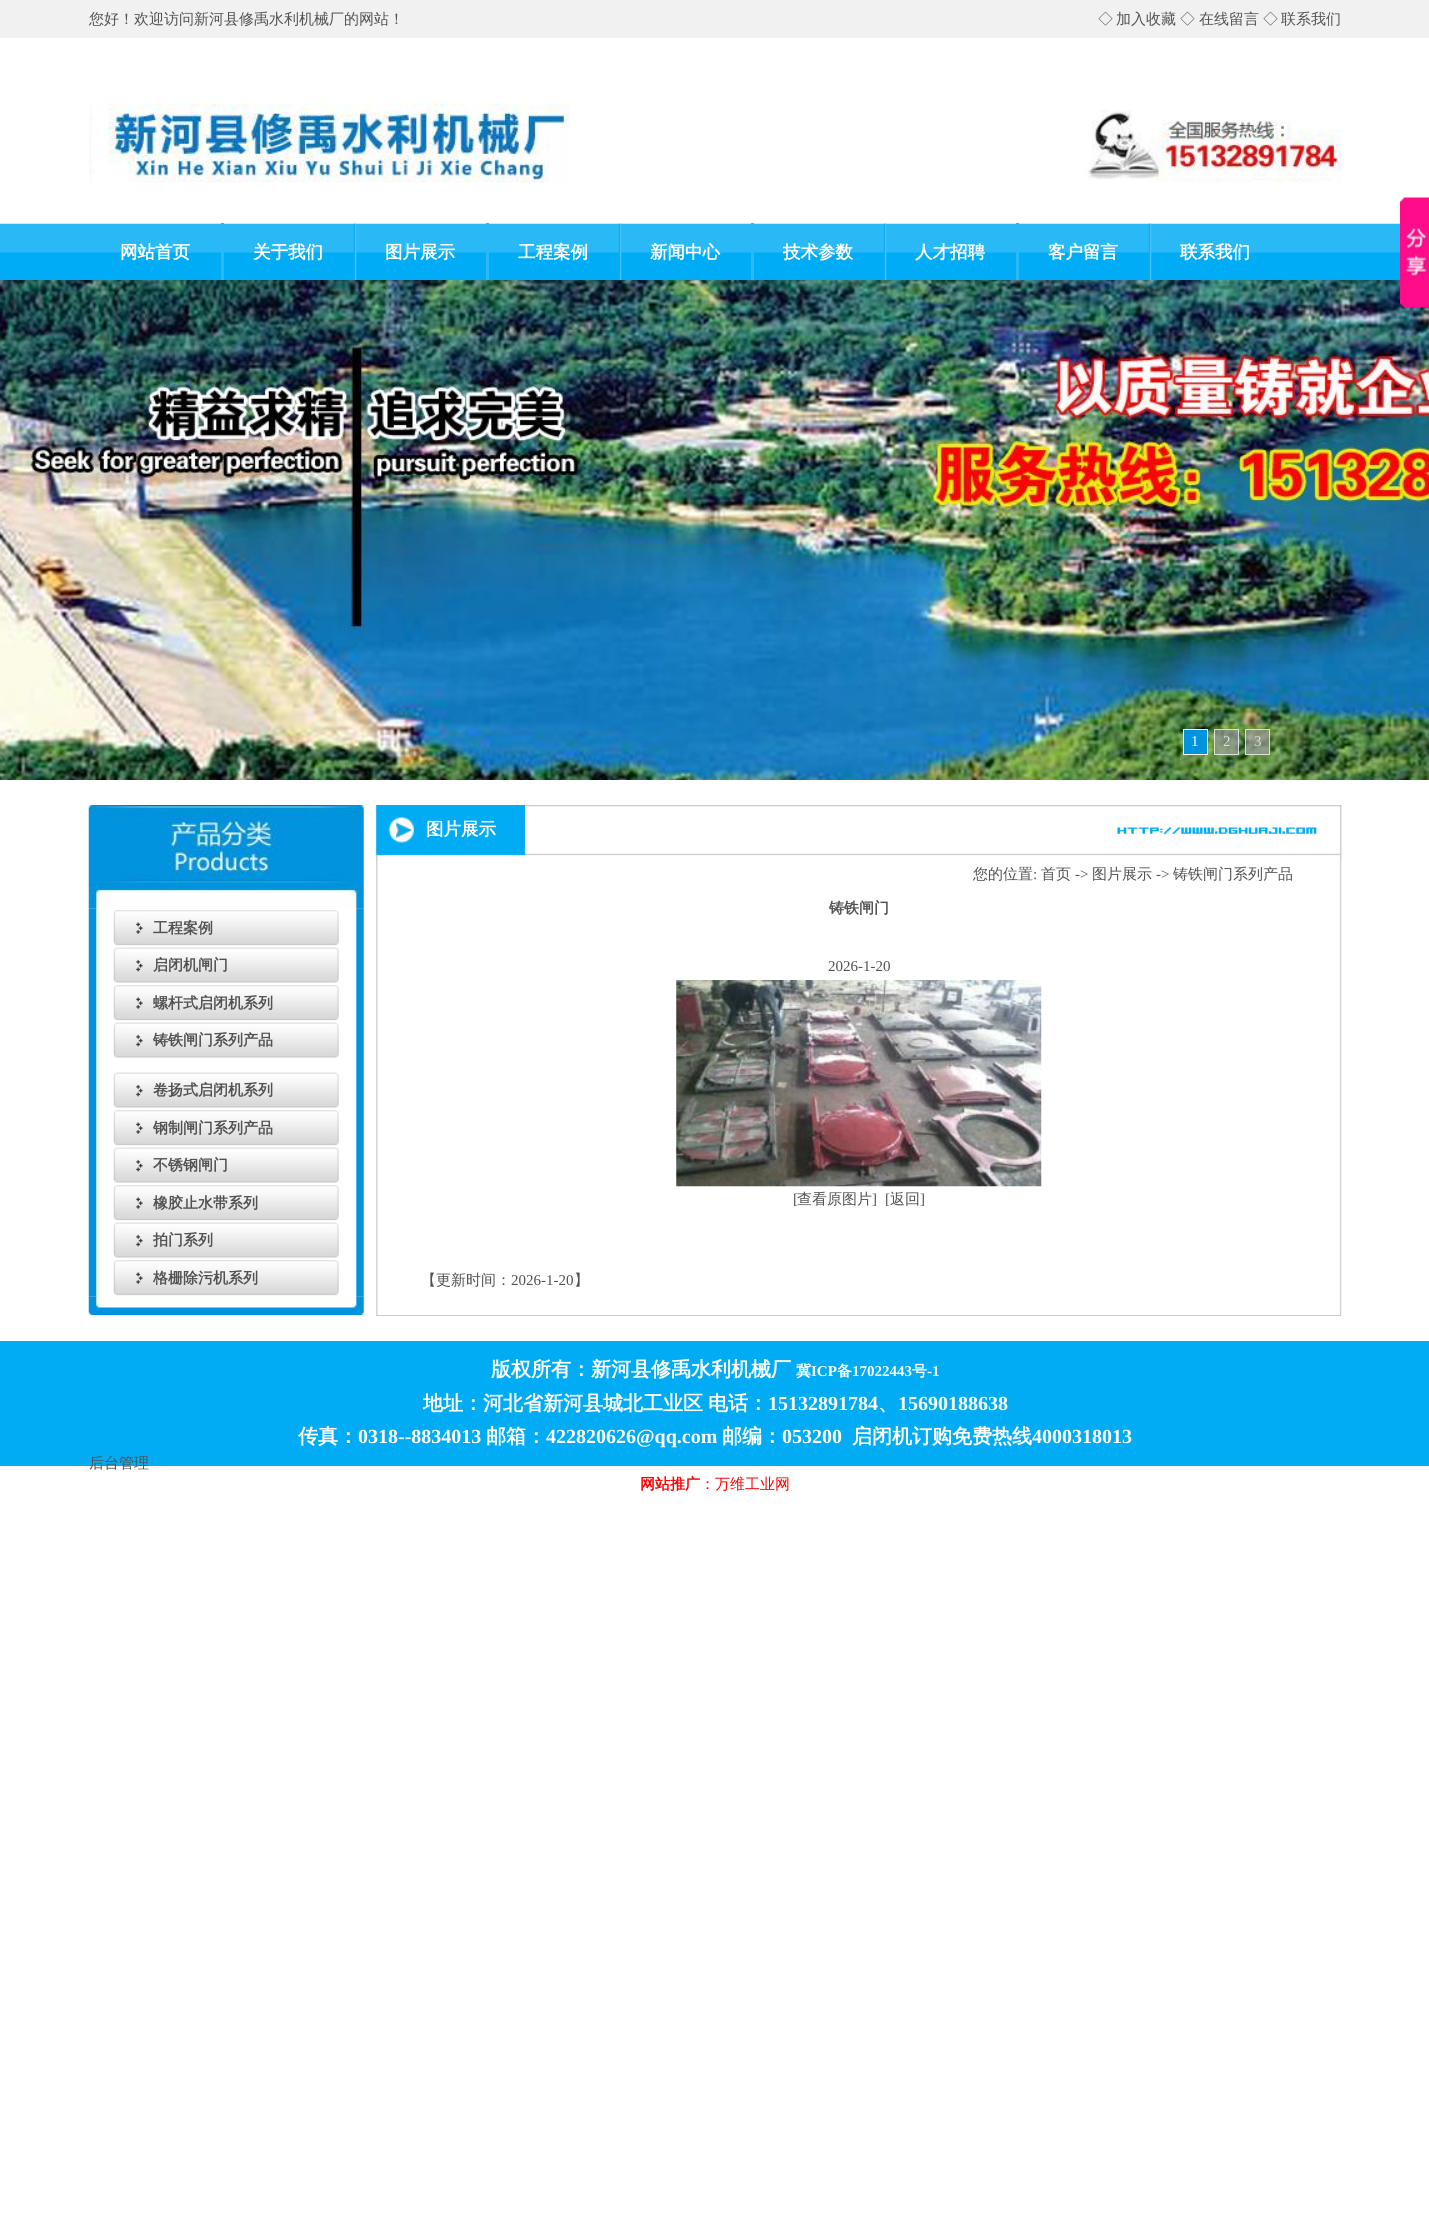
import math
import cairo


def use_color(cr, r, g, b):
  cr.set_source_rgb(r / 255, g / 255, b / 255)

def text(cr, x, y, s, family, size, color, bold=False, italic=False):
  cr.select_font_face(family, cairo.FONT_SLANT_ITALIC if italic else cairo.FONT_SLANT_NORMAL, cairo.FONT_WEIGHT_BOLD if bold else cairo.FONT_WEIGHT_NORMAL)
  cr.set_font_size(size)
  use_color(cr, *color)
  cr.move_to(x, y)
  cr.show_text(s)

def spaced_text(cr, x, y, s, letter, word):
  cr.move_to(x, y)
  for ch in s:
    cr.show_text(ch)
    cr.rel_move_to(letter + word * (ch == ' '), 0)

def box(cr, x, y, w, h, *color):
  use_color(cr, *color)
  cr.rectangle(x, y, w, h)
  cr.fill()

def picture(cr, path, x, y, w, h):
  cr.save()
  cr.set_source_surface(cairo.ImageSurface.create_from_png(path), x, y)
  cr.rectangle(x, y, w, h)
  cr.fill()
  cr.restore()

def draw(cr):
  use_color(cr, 255, 255, 255)
  cr.paint()
  box(cr, 0, 0, 1429, 38, 241, 241, 241)
  picture(cr, "img_01.png", 89, 103, 481, 80)
  picture(cr, "img_02.png", 1085, 110, 257, 73)
  picture(cr, "img_03.png", 0, 223, 1400, 57)
  box(cr, 221, 223, 3, 57, 42, 184, 246)
  picture(cr, "img_04.png", 353, 223, 4, 57)
  box(cr, 486, 223, 3, 57, 42, 184, 246)
  picture(cr, "img_04.png", 618, 223, 4, 57)
  box(cr, 751, 223, 3, 57, 42, 184, 246)
  picture(cr, "img_04.png", 883, 223, 4, 57)
  box(cr, 1016, 223, 3, 57, 42, 184, 246)
  picture(cr, "img_04.png", 1148, 223, 4, 57)
  picture(cr, "img_06.png", 0, 280, 1429, 500)
  picture(cr, "img_05.png", 1400, 197, 29, 111)
  use_color(cr, 1, 147, 222)
  cr.rectangle(1183.5, 729.5, 24, 25)
  cr.fill_preserve()
  use_color(cr, 255, 255, 255)
  cr.set_line_width(1)
  cr.stroke()
  cr.set_source_rgba(0.6, 0.6, 0.6, 0.7)
  cr.rectangle(1214, 729, 25, 26)
  cr.fill()
  cr.rectangle(1214.5, 729.5, 24, 25)
  cr.set_source_rgba(1, 1, 1, 0.7)
  cr.stroke()
  cr.set_source_rgba(0.6, 0.6, 0.6, 0.7)
  cr.rectangle(1245, 729, 25, 26)
  cr.fill()
  cr.rectangle(1245.5, 729.5, 24, 25)
  cr.set_source_rgba(1, 1, 1, 0.7)
  cr.stroke()
  picture(cr, "img_08.png", 88, 908, 276, 389)
  picture(cr, "img_07.png", 88, 805, 276, 104)
  picture(cr, "img_09.png", 113, 910, 226, 36)
  picture(cr, "img_10.png", 113, 947, 226, 36)
  picture(cr, "img_09.png", 113, 985, 226, 36)
  picture(cr, "img_11.png", 113, 1022, 226, 36)
  picture(cr, "img_10.png", 113, 1072, 226, 36)
  picture(cr, "img_09.png", 113, 1110, 226, 36)
  picture(cr, "img_12.png", 113, 1147, 226, 36)
  picture(cr, "img_09.png", 113, 1185, 226, 36)
  picture(cr, "img_10.png", 113, 1222, 226, 36)
  picture(cr, "img_09.png", 113, 1260, 226, 36)
  picture(cr, "img_13.png", 88, 1296, 276, 19)
  picture(cr, "img_14.png", 376, 805, 966, 510)
  picture(cr, "img_15.png", 376, 805, 966, 56)
  picture(cr, "img_16.png", 676, 980, 366, 207)
  box(cr, 376, 1315, 965, 1, 204, 204, 204)
  box(cr, 0, 1341, 1429, 125, 1, 172, 244)
  text(cr, 89, 24, "您好！欢迎访问新河县修禹水利机械厂的网站！", "WenQuanYi Zen Hei Medium", 15, (82, 82, 82))
  text(cr, 1098, 24, "◇", "WenQuanYi Zen Hei Medium", 15, (82, 82, 82))
  text(cr, 1116, 24, "加入收藏", "WenQuanYi Zen Hei Medium", 15, (82, 82, 82))
  text(cr, 1180, 24, "◇", "WenQuanYi Zen Hei Medium", 15, (82, 82, 82))
  text(cr, 1199, 24, "在线留言", "WenQuanYi Zen Hei Medium", 15, (82, 82, 82))
  text(cr, 1263, 24, "◇", "WenQuanYi Zen Hei Medium", 15, (82, 82, 82))
  text(cr, 1281, 24, "联系我们", "WenQuanYi Zen Hei Medium", 15, (82, 82, 82))
  text(cr, 120, 258, "网站首页", "WenQuanYi Zen Hei", 17.5, (255, 255, 255), bold=True)
  text(cr, 253, 258, "关于我们", "WenQuanYi Zen Hei", 17.5, (255, 255, 255), bold=True)
  text(cr, 385, 258, "图片展示", "WenQuanYi Zen Hei", 17.5, (255, 255, 255), bold=True)
  text(cr, 518, 258, "工程案例", "WenQuanYi Zen Hei", 17.5, (255, 255, 255), bold=True)
  text(cr, 650, 258, "新闻中心", "WenQuanYi Zen Hei", 17.5, (255, 255, 255), bold=True)
  text(cr, 783, 258, "技术参数", "WenQuanYi Zen Hei", 17.5, (255, 255, 255), bold=True)
  text(cr, 915, 258, "人才招聘", "WenQuanYi Zen Hei", 17.5, (255, 255, 255), bold=True)
  text(cr, 1048, 258, "客户留言", "WenQuanYi Zen Hei", 17.5, (255, 255, 255), bold=True)
  text(cr, 1180, 258, "联系我们", "WenQuanYi Zen Hei", 17.5, (255, 255, 255), bold=True)
  text(cr, 1191, 746, "1", "Liberation Serif", 15, (255, 255, 255))
  text(cr, 1223, 746, "2", "Liberation Serif", 15, (217, 222, 215))
  text(cr, 1254, 746, "3", "Liberation Serif", 15, (217, 222, 215))
  text(cr, 153, 933, "工程案例", "WenQuanYi Zen Hei", 15, (82, 82, 82), bold=True)
  text(cr, 153, 970, "启闭机闸门", "WenQuanYi Zen Hei", 15, (82, 82, 82), bold=True)
  text(cr, 153, 1008, "螺杆式启闭机系列", "WenQuanYi Zen Hei", 15, (82, 82, 82), bold=True)
  text(cr, 153, 1045, "铸铁闸门系列产品", "WenQuanYi Zen Hei", 15, (82, 82, 82), bold=True)
  text(cr, 153, 1095, "卷扬式启闭机系列", "WenQuanYi Zen Hei", 15, (82, 82, 82), bold=True)
  text(cr, 153, 1133, "钢制闸门系列产品", "WenQuanYi Zen Hei", 15, (82, 82, 82), bold=True)
  text(cr, 153, 1170, "不锈钢闸门", "WenQuanYi Zen Hei", 15, (82, 82, 82), bold=True)
  text(cr, 153, 1208, "橡胶止水带系列", "WenQuanYi Zen Hei", 15, (82, 82, 82), bold=True)
  text(cr, 153, 1245, "拍门系列", "WenQuanYi Zen Hei", 15, (82, 82, 82), bold=True)
  text(cr, 153, 1283, "格栅除污机系列", "WenQuanYi Zen Hei", 15, (82, 82, 82), bold=True)
  text(cr, 426, 835, "图片展示", "WenQuanYi Zen Hei", 17.5, (255, 255, 255), bold=True)
  text(cr, 973, 879, "您的位置", "WenQuanYi Zen Hei Medium", 15, (82, 82, 82))
  text(cr, 1033, 879, ":", "Liberation Serif", 15, (82, 82, 82))
  text(cr, 1041, 879, "首页", "WenQuanYi Zen Hei Medium", 15, (82, 82, 82))
  text(cr, 1075, 879, "->", "Liberation Serif", 15, (82, 82, 82))
  text(cr, 1092, 879, "图片展示", "WenQuanYi Zen Hei Medium", 15, (82, 82, 82))
  text(cr, 1156, 879, "->", "Liberation Serif", 15, (82, 82, 82))
  text(cr, 1173, 879, "铸铁闸门系列产品", "WenQuanYi Zen Hei Medium", 15, (82, 82, 82))
  text(cr, 829, 913, "铸铁闸门", "WenQuanYi Zen Hei", 15, (82, 82, 82), bold=True)
  text(cr, 828, 971, "2026-1-20", "Liberation Serif", 15, (82, 82, 82))
  text(cr, 793, 1204, "[", "Liberation Serif", 15, (82, 82, 82))
  text(cr, 797, 1204, "查看原图片", "WenQuanYi Zen Hei Medium", 15, (82, 82, 82))
  text(cr, 872, 1204, "]", "Liberation Serif", 15, (82, 82, 82))
  text(cr, 885, 1204, "[", "Liberation Serif", 15, (82, 82, 82))
  text(cr, 890, 1204, "返回", "WenQuanYi Zen Hei Medium", 15, (82, 82, 82))
  text(cr, 920, 1204, "]", "Liberation Serif", 15, (82, 82, 82))
  text(cr, 421, 1285, "【更新时间：", "WenQuanYi Zen Hei Medium", 15, (82, 82, 82))
  text(cr, 511, 1285, "2026-1-20", "Liberation Serif", 15, (82, 82, 82))
  text(cr, 574, 1285, "】", "WenQuanYi Zen Hei Medium", 15, (82, 82, 82))
  text(cr, 491, 1376, "版权所有：新河县修禹水利机械厂", "WenQuanYi Zen Hei", 20, (255, 255, 255), bold=True)
  text(cr, 796, 1376, "冀", "WenQuanYi Zen Hei", 15, (255, 255, 255), bold=True)
  text(cr, 811, 1376, "ICP", "Liberation Serif", 15, (255, 255, 255), bold=True)
  text(cr, 837, 1376, "备", "WenQuanYi Zen Hei", 15, (255, 255, 255), bold=True)
  text(cr, 852, 1376, "17022443", "Liberation Serif", 15, (255, 255, 255), bold=True)
  text(cr, 912, 1376, "号", "WenQuanYi Zen Hei", 15, (255, 255, 255), bold=True)
  text(cr, 927, 1376, "-1", "Liberation Serif", 15, (255, 255, 255), bold=True)
  cr.select_font_face("WenQuanYi Zen Hei", cairo.FONT_SLANT_NORMAL, cairo.FONT_WEIGHT_BOLD)
  cr.set_font_size(20)
  spaced_text(cr, 423, 1410, "地址：河北省新河县城北工业区 电话：", 0, -1)
  text(cr, 768, 1410, "15132891784", "Liberation Serif", 20, (255, 255, 255), bold=True)
  text(cr, 878, 1410, "、", "WenQuanYi Zen Hei", 20, (255, 255, 255), bold=True)
  text(cr, 898, 1410, "15690188638", "Liberation Serif", 20, (255, 255, 255), bold=True)
  text(cr, 298, 1443, "传真：", "WenQuanYi Zen Hei", 20, (255, 255, 255), bold=True)
  text(cr, 358, 1443, "0318--8834013", "Liberation Serif", 20, (255, 255, 255), bold=True)
  text(cr, 486, 1443, "邮箱：", "WenQuanYi Zen Hei", 20, (255, 255, 255), bold=True)
  text(cr, 546, 1443, "422820626@qq.com", "Liberation Serif", 20, (255, 255, 255), bold=True)
  text(cr, 722, 1443, "邮编：", "WenQuanYi Zen Hei", 20, (255, 255, 255), bold=True)
  text(cr, 782, 1443, "053200", "Liberation Serif", 20, (255, 255, 255), bold=True)
  text(cr, 852, 1443, "启闭机订购免费热线", "WenQuanYi Zen Hei", 20, (255, 255, 255), bold=True)
  text(cr, 1032, 1443, "4000318013", "Liberation Serif", 20, (255, 255, 255), bold=True)
  text(cr, 89, 1468, "后台管理", "WenQuanYi Zen Hei Medium", 15, (82, 82, 82))
  text(cr, 640, 1489, "网站推广", "WenQuanYi Zen Hei", 15, (255, 0, 0), bold=True)
  text(cr, 700, 1489, "：万维工业网", "WenQuanYi Zen Hei Medium", 15, (255, 0, 0))


surface = cairo.ImageSurface(cairo.FORMAT_RGB24, 1429, 2223)
cr = cairo.Context(surface)
options = cairo.FontOptions()
options.set_hint_metrics(cairo.HINT_METRICS_OFF)
options.set_hint_style(cairo.HINT_STYLE_NONE)
cr.set_font_options(options)
cr.set_miter_limit(4)
draw(cr)
surface.write_to_png("out.png")
